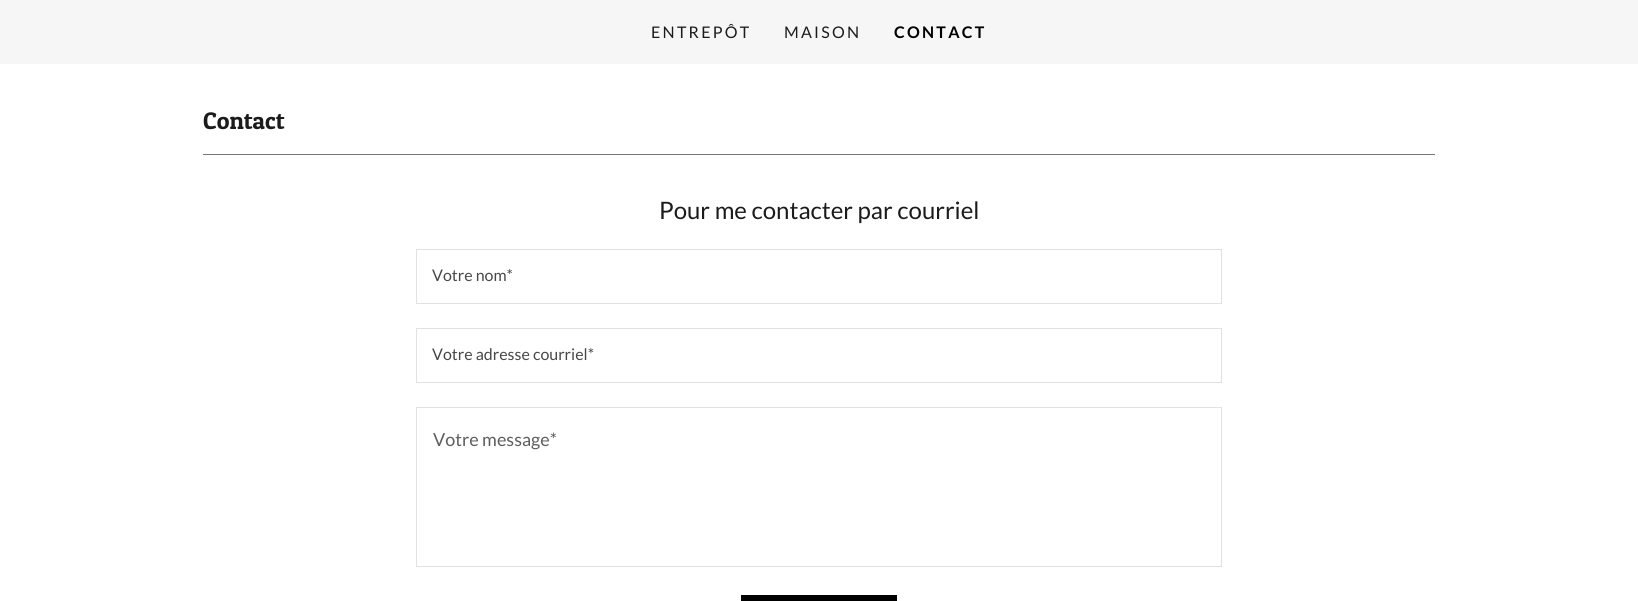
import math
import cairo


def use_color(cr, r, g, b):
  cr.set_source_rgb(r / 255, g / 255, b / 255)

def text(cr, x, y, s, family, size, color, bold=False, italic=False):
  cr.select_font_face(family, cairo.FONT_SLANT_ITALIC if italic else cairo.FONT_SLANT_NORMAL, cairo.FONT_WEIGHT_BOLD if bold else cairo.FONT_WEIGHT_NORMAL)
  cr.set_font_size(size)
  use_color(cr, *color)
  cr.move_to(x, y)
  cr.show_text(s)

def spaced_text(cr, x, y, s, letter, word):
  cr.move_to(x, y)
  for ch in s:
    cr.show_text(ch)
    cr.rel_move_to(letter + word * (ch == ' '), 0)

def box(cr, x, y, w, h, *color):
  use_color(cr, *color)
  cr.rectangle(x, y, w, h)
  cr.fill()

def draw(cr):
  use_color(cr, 255, 255, 255)
  cr.paint()
  box(cr, 0, 0, 1638, 64, 246, 246, 246)
  box(cr, 203, 154, 1232, 1, 119, 119, 119)
  cr.rectangle(416.5, 249.5, 805, 54)
  use_color(cr, 226, 226, 226)
  cr.set_line_width(1)
  cr.stroke()
  cr.rectangle(416.5, 328.5, 805, 54)
  cr.stroke()
  cr.rectangle(416.5, 407.5, 805, 159)
  cr.stroke()
  box(cr, 741, 595, 156, 6, 0, 0, 0)
  cr.select_font_face("Lato")
  cr.set_font_size(16)
  use_color(cr, 27, 27, 27)
  spaced_text(cr, 651, 38, "ENTREPÔT", 2.25, 0)
  spaced_text(cr, 784, 38, "MAISON", 2.25, 0)
  cr.select_font_face("Lato", cairo.FONT_SLANT_NORMAL, cairo.FONT_WEIGHT_BOLD)
  use_color(cr, 0, 0, 0)
  spaced_text(cr, 894, 38, "CONTACT", 2.25, 0)
  text(cr, 203, 129, "Contact", "Patua One", 24, (27, 27, 27))
  text(cr, 659, 219, "Pour me contacter par courriel", "Lato", 24, (27, 27, 27))
  text(cr, 432, 281, "Votre nom*", "Lato", 16, (71, 71, 71))
  text(cr, 432, 360, "Votre adresse courriel*", "Lato", 16, (71, 71, 71))
  text(cr, 433, 446, "Votre message*", "Lato", 18, (94, 94, 94))


surface = cairo.ImageSurface(cairo.FORMAT_RGB24, 1638, 601)
cr = cairo.Context(surface)
options = cairo.FontOptions()
options.set_hint_metrics(cairo.HINT_METRICS_OFF)
options.set_hint_style(cairo.HINT_STYLE_NONE)
cr.set_font_options(options)
cr.set_miter_limit(4)
draw(cr)
surface.write_to_png("out.png")
